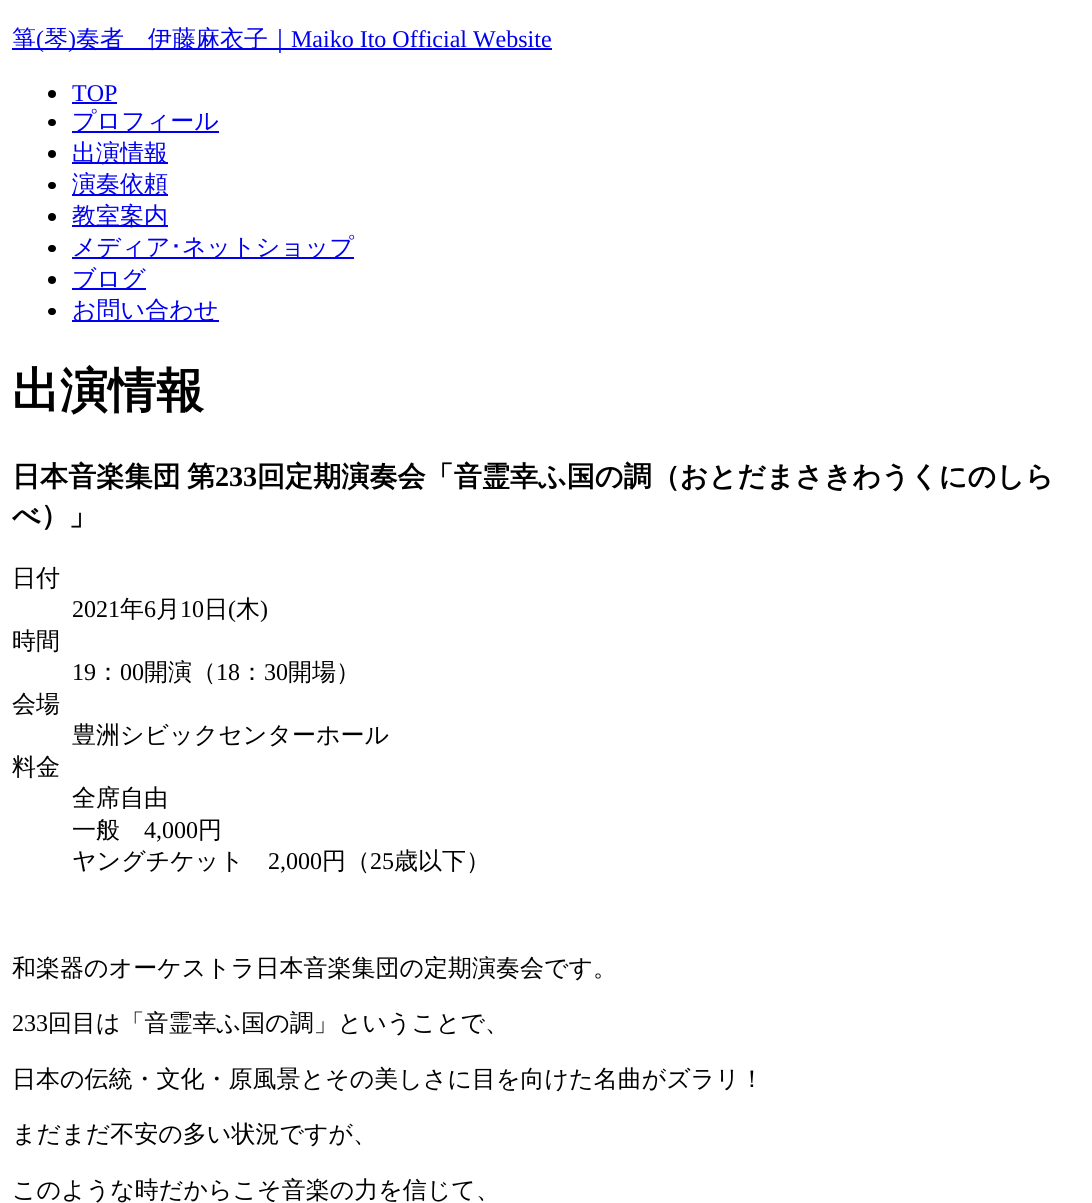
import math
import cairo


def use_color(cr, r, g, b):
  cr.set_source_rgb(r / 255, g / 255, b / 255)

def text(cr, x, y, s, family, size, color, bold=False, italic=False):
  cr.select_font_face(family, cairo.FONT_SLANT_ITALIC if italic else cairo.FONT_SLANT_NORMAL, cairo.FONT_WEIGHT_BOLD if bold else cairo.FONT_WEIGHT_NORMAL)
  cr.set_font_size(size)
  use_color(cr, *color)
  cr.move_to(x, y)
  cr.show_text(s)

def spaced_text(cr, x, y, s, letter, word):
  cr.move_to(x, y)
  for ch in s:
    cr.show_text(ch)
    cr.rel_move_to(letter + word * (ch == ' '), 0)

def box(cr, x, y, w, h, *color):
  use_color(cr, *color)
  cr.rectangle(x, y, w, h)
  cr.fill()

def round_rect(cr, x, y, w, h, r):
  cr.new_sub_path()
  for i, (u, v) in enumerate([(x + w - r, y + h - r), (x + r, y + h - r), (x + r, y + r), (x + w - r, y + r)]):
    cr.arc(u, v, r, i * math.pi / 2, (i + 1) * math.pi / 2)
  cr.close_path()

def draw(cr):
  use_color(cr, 255, 255, 255)
  cr.paint()
  box(cr, 12, 48, 540, 2, 0, 0, 238)
  use_color(cr, 0, 0, 0)
  cr.arc(52, 94, 4, 0, 2 * math.pi)
  cr.fill()
  box(cr, 72, 102, 45, 2, 0, 0, 238)
  use_color(cr, 0, 0, 0)
  round_rect(cr, 48, 119, 8, 7, 3.5)
  cr.fill()
  box(cr, 72, 131, 147, 2, 0, 0, 238)
  use_color(cr, 0, 0, 0)
  cr.arc(52, 154, 4, 0, 2 * math.pi)
  cr.fill()
  box(cr, 72, 162, 96, 2, 0, 0, 238)
  use_color(cr, 0, 0, 0)
  round_rect(cr, 48, 182, 8, 7, 3.5)
  cr.fill()
  box(cr, 72, 194, 96, 2, 0, 0, 238)
  use_color(cr, 0, 0, 0)
  cr.arc(52, 217, 4, 0, 2 * math.pi)
  cr.fill()
  box(cr, 72, 225, 96, 2, 0, 0, 238)
  use_color(cr, 0, 0, 0)
  round_rect(cr, 48, 245, 8, 7, 3.5)
  cr.fill()
  box(cr, 72, 257, 282, 2, 0, 0, 238)
  use_color(cr, 0, 0, 0)
  cr.arc(52, 280, 4, 0, 2 * math.pi)
  cr.fill()
  box(cr, 72, 288, 74, 2, 0, 0, 238)
  use_color(cr, 0, 0, 0)
  round_rect(cr, 48, 308, 8, 7, 3.5)
  cr.fill()
  box(cr, 72, 320, 147, 2, 0, 0, 238)
  text(cr, 12, 47, "箏", "WenQuanYi Zen Hei Medium", 24, (0, 0, 238))
  text(cr, 36, 47, "(", "Liberation Serif", 24, (0, 0, 238))
  text(cr, 44, 47, "琴", "WenQuanYi Zen Hei Medium", 24, (0, 0, 238))
  text(cr, 68, 47, ")", "Liberation Serif", 24, (0, 0, 238))
  text(cr, 76, 47, "奏者　伊藤麻衣子｜", "WenQuanYi Zen Hei Medium", 24, (0, 0, 238))
  text(cr, 291, 47, "Maiko Ito Official Website", "Liberation Serif", 24, (0, 0, 238))
  text(cr, 72, 101, "TOP", "Liberation Serif", 24, (0, 0, 238))
  text(cr, 72, 129, "プロフィール", "WenQuanYi Zen Hei Medium", 24, (0, 0, 238))
  text(cr, 72, 161, "出演情報", "WenQuanYi Zen Hei Medium", 24, (0, 0, 238))
  text(cr, 72, 192, "演奏依頼", "WenQuanYi Zen Hei Medium", 24, (0, 0, 238))
  text(cr, 72, 224, "教室案内", "WenQuanYi Zen Hei Medium", 24, (0, 0, 238))
  text(cr, 72, 255, "メディア", "WenQuanYi Zen Hei Medium", 24, (0, 0, 238))
  text(cr, 170, 255, "･", "IPAPGothic", 24, (0, 0, 238))
  text(cr, 182, 255, "ネットショップ", "WenQuanYi Zen Hei Medium", 24, (0, 0, 238))
  text(cr, 72, 287, "ブログ", "WenQuanYi Zen Hei Medium", 24, (0, 0, 238))
  text(cr, 72, 318, "お問い合わせ", "WenQuanYi Zen Hei Medium", 24, (0, 0, 238))
  text(cr, 12, 407, "出演情報", "WenQuanYi Zen Hei", 48, (0, 0, 0), bold=True)
  cr.set_font_size(28.1)
  spaced_text(cr, 12, 486, "日本音楽集団 第", 0, -2)
  text(cr, 215, 486, "233", "Liberation Serif", 28.1, (0, 0, 0), bold=True)
  text(cr, 257, 486, "回定期演奏会「音霊幸ふ国の調（おとだまさきわうくにのしら", "WenQuanYi Zen Hei", 28.1, (0, 0, 0), bold=True)
  text(cr, 12, 525, "べ）」", "WenQuanYi Zen Hei", 28.1, (0, 0, 0), bold=True)
  text(cr, 12, 586, "日付", "WenQuanYi Zen Hei Medium", 24, (0, 0, 0))
  text(cr, 72, 617, "2021", "Liberation Serif", 24, (0, 0, 0))
  text(cr, 120, 617, "年", "WenQuanYi Zen Hei Medium", 24, (0, 0, 0))
  text(cr, 144, 617, "6", "Liberation Serif", 24, (0, 0, 0))
  text(cr, 156, 617, "月", "WenQuanYi Zen Hei Medium", 24, (0, 0, 0))
  text(cr, 180, 617, "10", "Liberation Serif", 24, (0, 0, 0))
  text(cr, 204, 617, "日", "WenQuanYi Zen Hei Medium", 24, (0, 0, 0))
  text(cr, 228, 617, "(", "Liberation Serif", 24, (0, 0, 0))
  text(cr, 236, 617, "木", "WenQuanYi Zen Hei Medium", 24, (0, 0, 0))
  text(cr, 260, 617, ")", "Liberation Serif", 24, (0, 0, 0))
  text(cr, 12, 649, "時間", "WenQuanYi Zen Hei Medium", 24, (0, 0, 0))
  text(cr, 72, 680, "19", "Liberation Serif", 24, (0, 0, 0))
  text(cr, 96, 680, "：", "WenQuanYi Zen Hei Medium", 24, (0, 0, 0))
  text(cr, 120, 680, "00", "Liberation Serif", 24, (0, 0, 0))
  text(cr, 144, 680, "開演（", "WenQuanYi Zen Hei Medium", 24, (0, 0, 0))
  text(cr, 216, 680, "18", "Liberation Serif", 24, (0, 0, 0))
  text(cr, 240, 680, "：", "WenQuanYi Zen Hei Medium", 24, (0, 0, 0))
  text(cr, 264, 680, "30", "Liberation Serif", 24, (0, 0, 0))
  text(cr, 288, 680, "開場）", "WenQuanYi Zen Hei Medium", 24, (0, 0, 0))
  text(cr, 12, 712, "会場", "WenQuanYi Zen Hei Medium", 24, (0, 0, 0))
  text(cr, 72, 743, "豊洲シビックセンターホール", "WenQuanYi Zen Hei Medium", 24, (0, 0, 0))
  text(cr, 12, 775, "料金", "WenQuanYi Zen Hei Medium", 24, (0, 0, 0))
  text(cr, 72, 806, "全席自由", "WenQuanYi Zen Hei Medium", 24, (0, 0, 0))
  text(cr, 72, 838, "一般", "WenQuanYi Zen Hei Medium", 24, (0, 0, 0))
  text(cr, 144, 838, "4,000", "Liberation Serif", 24, (0, 0, 0))
  text(cr, 198, 838, "円", "WenQuanYi Zen Hei Medium", 24, (0, 0, 0))
  text(cr, 72, 869, "ヤングチケット", "WenQuanYi Zen Hei Medium", 24, (0, 0, 0))
  text(cr, 268, 869, "2,000", "Liberation Serif", 24, (0, 0, 0))
  text(cr, 322, 869, "円（", "WenQuanYi Zen Hei Medium", 24, (0, 0, 0))
  text(cr, 370, 869, "25", "Liberation Serif", 24, (0, 0, 0))
  text(cr, 394, 869, "歳以下）", "WenQuanYi Zen Hei Medium", 24, (0, 0, 0))
  text(cr, 12, 976, "和楽器のオーケストラ日本音楽集団の定期演奏会です。", "WenQuanYi Zen Hei Medium", 24, (0, 0, 0))
  text(cr, 12, 1031, "233", "Liberation Serif", 24, (0, 0, 0))
  text(cr, 48, 1031, "回目は「音霊幸ふ国の調」ということで、", "WenQuanYi Zen Hei Medium", 24, (0, 0, 0))
  text(cr, 12, 1087, "日本の伝統・文化・原風景とその美しさに目を向けた名曲がズラリ！", "WenQuanYi Zen Hei Medium", 24, (0, 0, 0))
  text(cr, 12, 1142, "まだまだ不安の多い状況ですが、", "WenQuanYi Zen Hei Medium", 24, (0, 0, 0))
  text(cr, 12, 1198, "このような時だからこそ音楽の力を信じて、", "WenQuanYi Zen Hei Medium", 24, (0, 0, 0))


surface = cairo.ImageSurface(cairo.FORMAT_RGB24, 1092, 1203)
cr = cairo.Context(surface)
options = cairo.FontOptions()
options.set_hint_metrics(cairo.HINT_METRICS_OFF)
options.set_hint_style(cairo.HINT_STYLE_NONE)
cr.set_font_options(options)
cr.set_miter_limit(4)
draw(cr)
surface.write_to_png("out.png")
